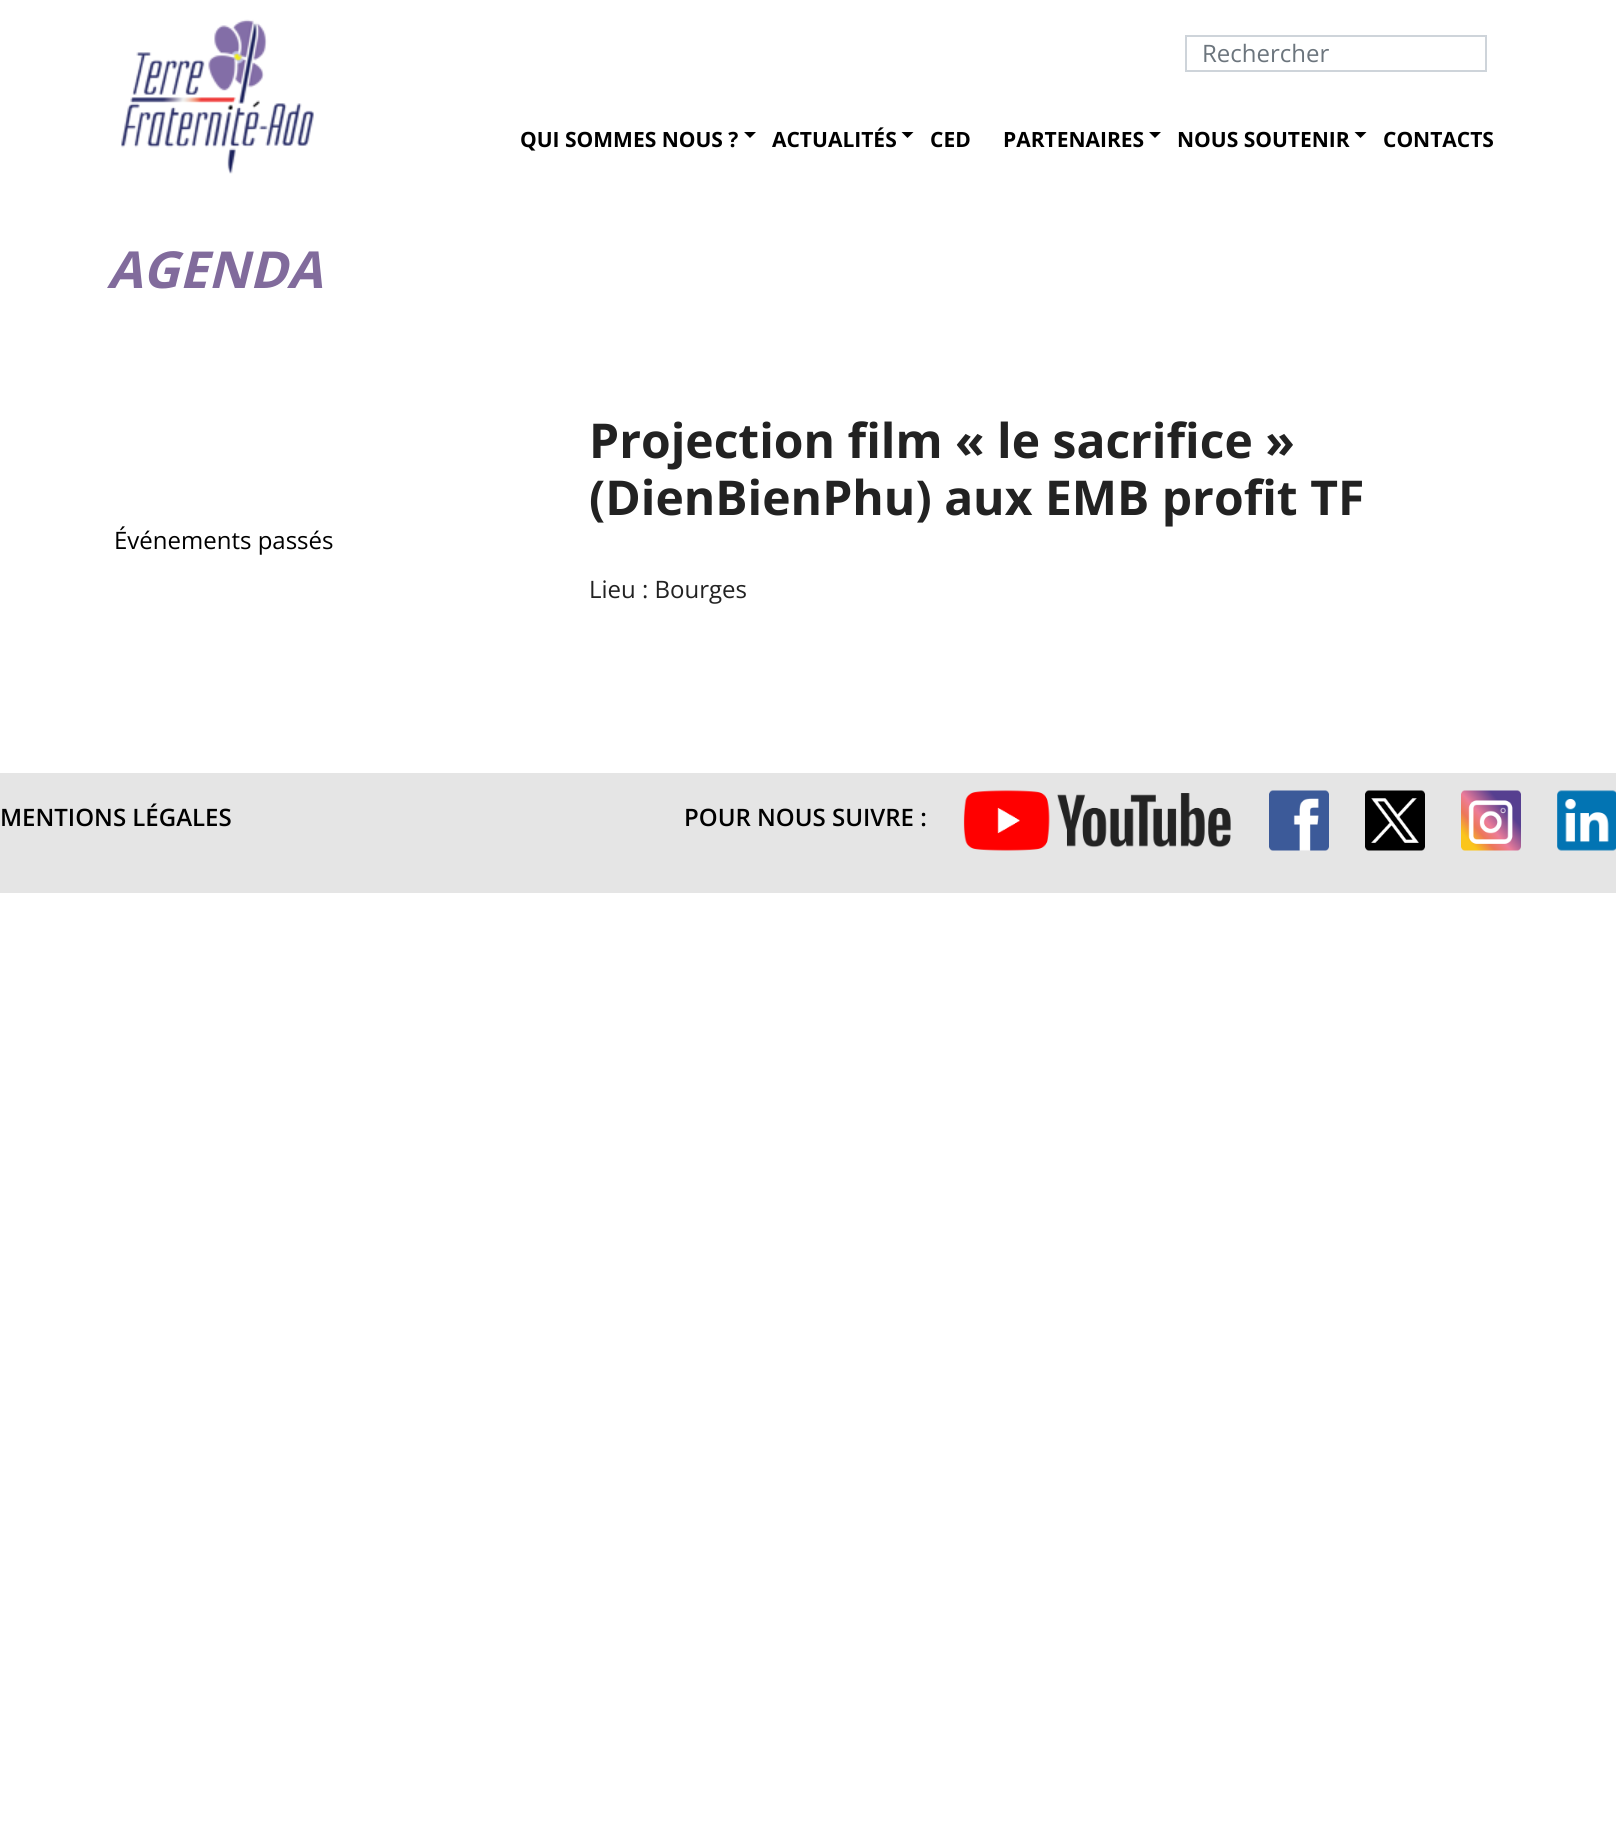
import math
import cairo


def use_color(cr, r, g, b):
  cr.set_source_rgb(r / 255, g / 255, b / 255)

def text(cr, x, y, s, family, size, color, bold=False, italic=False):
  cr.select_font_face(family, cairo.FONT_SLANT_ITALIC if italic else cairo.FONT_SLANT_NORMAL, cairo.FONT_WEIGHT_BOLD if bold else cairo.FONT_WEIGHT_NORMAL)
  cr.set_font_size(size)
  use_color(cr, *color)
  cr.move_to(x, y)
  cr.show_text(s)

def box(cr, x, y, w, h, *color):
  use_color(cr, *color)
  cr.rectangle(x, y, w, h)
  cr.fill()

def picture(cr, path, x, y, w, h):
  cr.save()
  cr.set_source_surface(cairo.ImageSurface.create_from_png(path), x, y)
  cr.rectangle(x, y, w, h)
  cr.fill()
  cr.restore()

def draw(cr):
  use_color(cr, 255, 255, 255)
  cr.paint()
  picture(cr, "img_01.png", 121, 19, 193, 155)
  cr.rectangle(1186, 36, 300, 35)
  use_color(cr, 206, 212, 218)
  cr.stroke()
  use_color(cr, 0, 0, 0)
  cr.new_path()
  cr.move_to(744, 132)
  cr.line_to(756, 132)
  cr.line_to(750, 138)
  cr.close_path()
  cr.fill()
  cr.new_path()
  cr.move_to(901.5, 132)
  cr.line_to(913.5, 132)
  cr.line_to(907.5, 138)
  cr.close_path()
  cr.fill()
  cr.new_path()
  cr.move_to(1149, 132)
  cr.line_to(1161, 132)
  cr.line_to(1155, 138)
  cr.close_path()
  cr.fill()
  cr.new_path()
  cr.move_to(1354.5, 132)
  cr.line_to(1366.5, 132)
  cr.line_to(1360.5, 138)
  cr.close_path()
  cr.fill()
  box(cr, 0, 773, 1616, 120, 229, 229, 229)
  picture(cr, "img_02.png", 963, 790, 268, 61)
  picture(cr, "img_03.png", 1269, 790, 60, 61)
  picture(cr, "img_04.png", 1365, 790, 60, 61)
  picture(cr, "img_05.png", 1461, 790, 60, 61)
  picture(cr, "img_06.png", 1557, 790, 59, 61)
  text(cr, 1202, 62, "Rechercher", "Open Sans", 24, (108, 117, 125))
  text(cr, 520, 147, "QUI SOMMES NOUS ?", "Open Sans", 21, (0, 0, 0), bold=True)
  text(cr, 772, 147, "ACTUALITÉS", "Open Sans", 21, (0, 0, 0), bold=True)
  text(cr, 930, 147, "CED", "Open Sans", 21, (0, 0, 0), bold=True)
  text(cr, 1003, 147, "PARTENAIRES", "Open Sans", 21, (0, 0, 0), bold=True)
  text(cr, 1177, 147, "NOUS SOUTENIR", "Open Sans", 21, (0, 0, 0), bold=True)
  text(cr, 1383, 147, "CONTACTS", "Open Sans", 21, (0, 0, 0), bold=True)
  text(cr, 107, 288, "AGENDA", "Open Sans", 51, (129, 107, 156), bold=True, italic=True)
  text(cr, 114, 549, "Événements passés", "Open Sans", 24, (0, 0, 0))
  text(cr, 589, 458, "Projection film « le sacrifice »", "Open Sans", 48, (34, 34, 34), bold=True)
  text(cr, 589, 515, "(DienBienPhu) aux EMB profit TF", "Open Sans", 48, (34, 34, 34), bold=True)
  text(cr, 589, 598, "Lieu : Bourges", "Open Sans", 24, (34, 34, 34))
  text(cr, 0, 826, "MENTIONS LÉGALES", "Open Sans SemiBold", 24, (0, 0, 0))
  text(cr, 684, 826, "POUR NOUS SUIVRE :", "Open Sans SemiBold", 24, (0, 0, 0))


surface = cairo.ImageSurface(cairo.FORMAT_RGB24, 1616, 1845)
cr = cairo.Context(surface)
options = cairo.FontOptions()
options.set_hint_metrics(cairo.HINT_METRICS_OFF)
options.set_hint_style(cairo.HINT_STYLE_NONE)
cr.set_font_options(options)
cr.set_miter_limit(4)
draw(cr)
surface.write_to_png("out.png")
